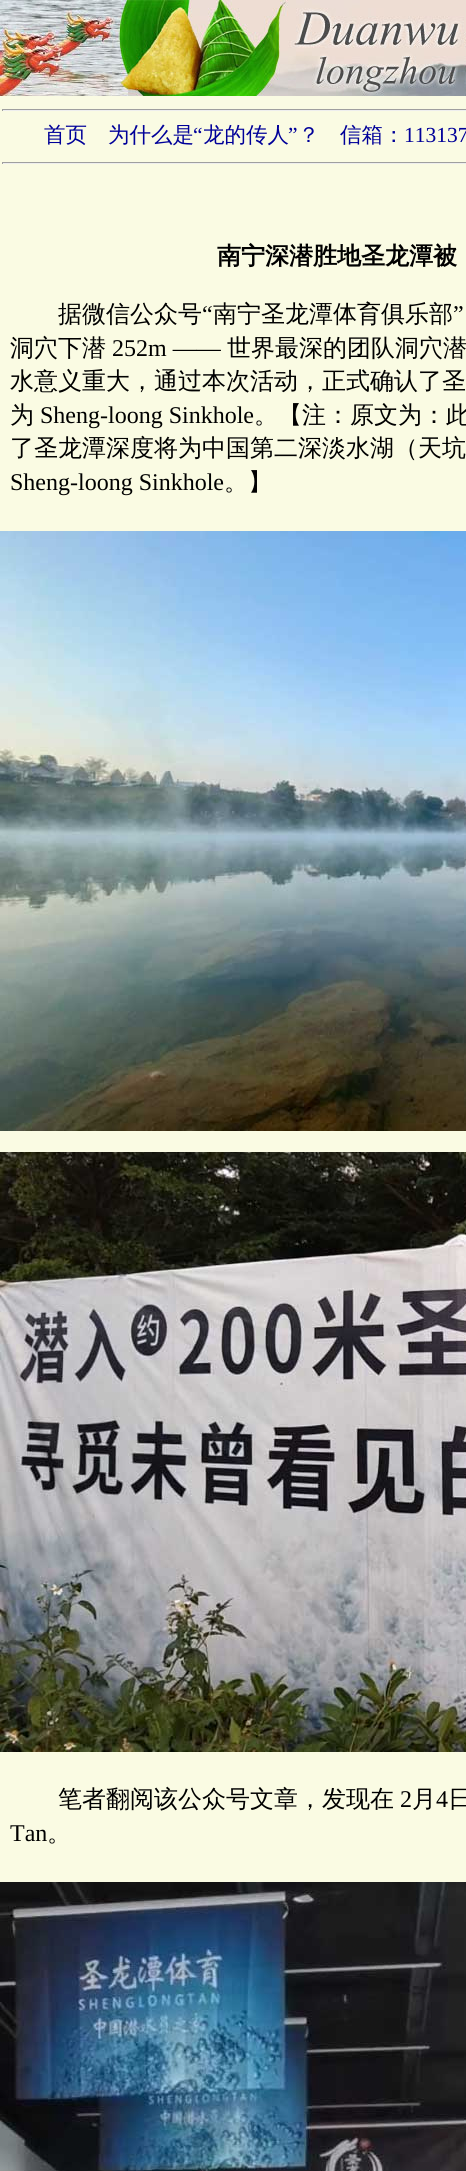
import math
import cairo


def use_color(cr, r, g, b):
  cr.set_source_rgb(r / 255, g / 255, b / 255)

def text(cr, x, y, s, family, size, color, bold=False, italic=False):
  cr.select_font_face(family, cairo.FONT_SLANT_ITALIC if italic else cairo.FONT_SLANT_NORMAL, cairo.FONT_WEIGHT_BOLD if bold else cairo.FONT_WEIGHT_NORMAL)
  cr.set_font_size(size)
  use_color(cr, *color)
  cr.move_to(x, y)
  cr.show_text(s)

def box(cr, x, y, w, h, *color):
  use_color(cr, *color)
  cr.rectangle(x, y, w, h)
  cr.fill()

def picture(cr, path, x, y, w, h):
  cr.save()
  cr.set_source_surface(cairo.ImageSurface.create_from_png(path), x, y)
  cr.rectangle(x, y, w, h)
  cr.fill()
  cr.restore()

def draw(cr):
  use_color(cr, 250, 251, 227)
  cr.paint()
  picture(cr, "img_01.png", 0, 0, 466, 96)
  box(cr, 2, 109, 464, 1, 159, 159, 159)
  box(cr, 2, 110, 464, 1, 238, 238, 238)
  box(cr, 2, 109, 1, 2, 159, 159, 159)
  box(cr, 2, 162, 464, 1, 159, 159, 159)
  box(cr, 2, 163, 464, 1, 238, 238, 238)
  box(cr, 2, 162, 1, 2, 159, 159, 159)
  picture(cr, "img_02.png", 0, 531, 466, 600)
  picture(cr, "img_03.png", 0, 1152, 466, 600)
  picture(cr, "img_04.png", 0, 1882, 466, 289)
  text(cr, 44, 142, "首页", "WenQuanYi Zen Hei Medium", 21.5, (0, 0, 153))
  text(cr, 108, 142, "为什么是", "WenQuanYi Zen Hei Medium", 21.5, (0, 0, 153))
  text(cr, 193, 142, "“", "Liberation Serif", 21.5, (0, 0, 153))
  text(cr, 203, 142, "龙的传人", "WenQuanYi Zen Hei Medium", 21.5, (0, 0, 153))
  text(cr, 288, 142, "”", "Liberation Serif", 21.5, (0, 0, 153))
  text(cr, 298, 142, "？", "WenQuanYi Zen Hei Medium", 21.5, (0, 0, 153))
  text(cr, 340, 142, "信箱：", "WenQuanYi Zen Hei Medium", 21.5, (0, 0, 153))
  text(cr, 404, 142, "113137", "Liberation Serif", 21.5, (0, 0, 153))
  text(cr, 217, 264, "南宁深潜胜地圣龙潭被", "WenQuanYi Zen Hei", 24, (0, 0, 0), bold=True)
  text(cr, 58, 322, "据微信公众号", "WenQuanYi Zen Hei Medium", 24, (0, 0, 0))
  text(cr, 202, 322, "“", "Liberation Serif", 24, (0, 0, 0))
  text(cr, 213, 322, "南宁圣龙潭体育俱乐部", "WenQuanYi Zen Hei Medium", 24, (0, 0, 0))
  text(cr, 453, 322, "”", "Liberation Serif", 24, (0, 0, 0))
  text(cr, 10, 356, "洞穴下潜", "WenQuanYi Zen Hei Medium", 24, (0, 0, 0))
  text(cr, 112, 356, "252m ——", "Liberation Serif", 24, (0, 0, 0))
  text(cr, 227, 356, "世界最深的团队洞穴潜", "WenQuanYi Zen Hei Medium", 24, (0, 0, 0))
  text(cr, 10, 389, "水意义重大，通过本次活动，正式确认了圣", "WenQuanYi Zen Hei Medium", 24, (0, 0, 0))
  text(cr, 10, 423, "为", "WenQuanYi Zen Hei Medium", 24, (0, 0, 0))
  text(cr, 40, 423, "Sheng-loong Sinkhole", "Liberation Serif", 24, (0, 0, 0))
  text(cr, 254, 423, "。【注：原文为：此", "WenQuanYi Zen Hei Medium", 24, (0, 0, 0))
  text(cr, 10, 456, "了圣龙潭深度将为中国第二深淡水湖（天坑", "WenQuanYi Zen Hei Medium", 24, (0, 0, 0))
  text(cr, 10, 490, "Sheng-loong Sinkhole", "Liberation Serif", 24, (0, 0, 0))
  text(cr, 224, 490, "。】", "WenQuanYi Zen Hei Medium", 24, (0, 0, 0))
  text(cr, 58, 1807, "笔者翻阅该公众号文章，发现在", "WenQuanYi Zen Hei Medium", 24, (0, 0, 0))
  text(cr, 400, 1807, "2", "Liberation Serif", 24, (0, 0, 0))
  text(cr, 412, 1807, "月", "WenQuanYi Zen Hei Medium", 24, (0, 0, 0))
  text(cr, 436, 1807, "4", "Liberation Serif", 24, (0, 0, 0))
  text(cr, 448, 1807, "日", "WenQuanYi Zen Hei Medium", 24, (0, 0, 0))
  text(cr, 10, 1841, "Tan", "Liberation Serif", 24, (0, 0, 0))
  text(cr, 47, 1841, "。", "WenQuanYi Zen Hei Medium", 24, (0, 0, 0))


surface = cairo.ImageSurface(cairo.FORMAT_RGB24, 466, 2171)
cr = cairo.Context(surface)
options = cairo.FontOptions()
options.set_hint_metrics(cairo.HINT_METRICS_OFF)
options.set_hint_style(cairo.HINT_STYLE_NONE)
cr.set_font_options(options)
cr.set_miter_limit(4)
draw(cr)
surface.write_to_png("out.png")
